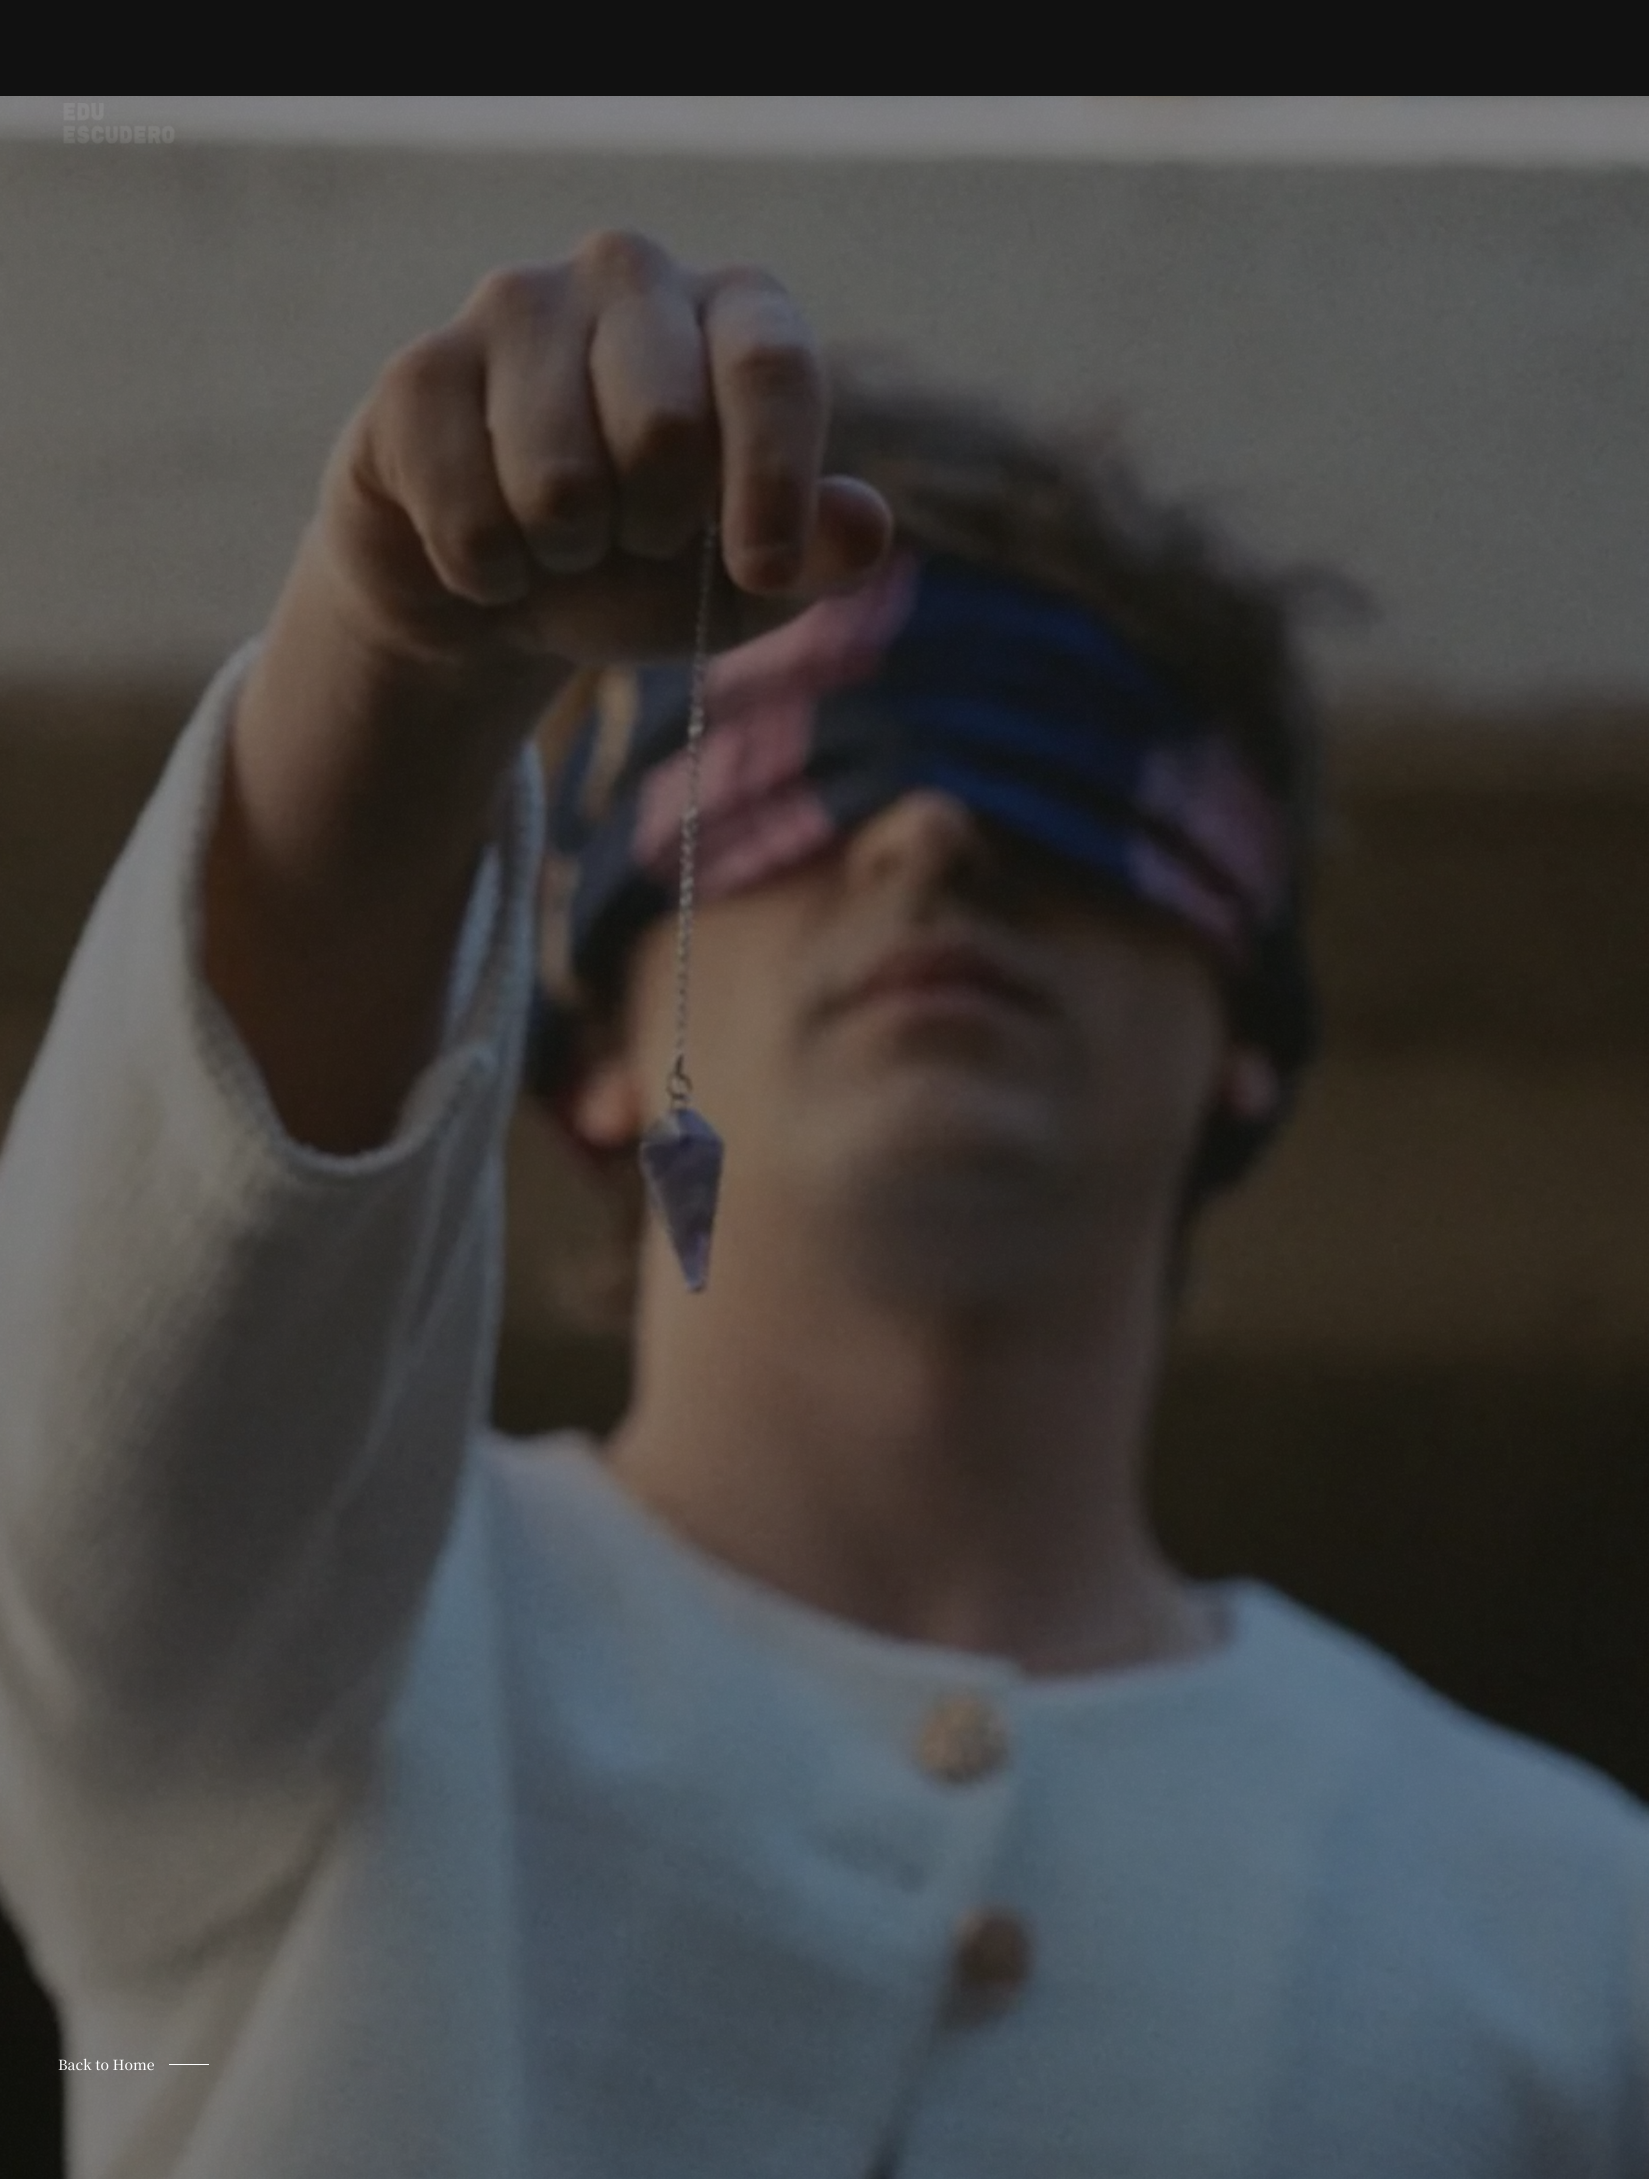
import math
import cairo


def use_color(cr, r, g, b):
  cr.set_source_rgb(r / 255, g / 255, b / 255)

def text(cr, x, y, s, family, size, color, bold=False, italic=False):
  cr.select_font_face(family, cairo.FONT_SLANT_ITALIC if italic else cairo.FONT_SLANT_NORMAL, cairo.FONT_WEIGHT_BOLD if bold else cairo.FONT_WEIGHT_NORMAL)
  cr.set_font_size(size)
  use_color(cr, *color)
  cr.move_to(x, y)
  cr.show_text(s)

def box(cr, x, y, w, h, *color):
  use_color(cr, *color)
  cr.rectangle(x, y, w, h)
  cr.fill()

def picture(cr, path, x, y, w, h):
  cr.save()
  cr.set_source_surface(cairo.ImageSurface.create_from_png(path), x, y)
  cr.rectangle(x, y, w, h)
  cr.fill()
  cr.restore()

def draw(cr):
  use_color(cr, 10, 10, 10)
  cr.paint()
  box(cr, 0, 0, 1649, 96, 17, 17, 17)
  picture(cr, "img_01.png", 0, 96, 1649, 2083)
  picture(cr, "img_03.png", 0, 96, 1649, 2083)
  picture(cr, "img_02.png", 63, 103, 112, 41)
  box(cr, 169, 2064, 40, 1, 255, 255, 255)
  text(cr, 58, 2070, "Back to Home", "Noto Serif JP Medium", 14, (255, 255, 255))


surface = cairo.ImageSurface(cairo.FORMAT_RGB24, 1649, 2179)
cr = cairo.Context(surface)
options = cairo.FontOptions()
options.set_hint_metrics(cairo.HINT_METRICS_OFF)
options.set_hint_style(cairo.HINT_STYLE_NONE)
cr.set_font_options(options)
cr.set_miter_limit(4)
draw(cr)
surface.write_to_png("out.png")
